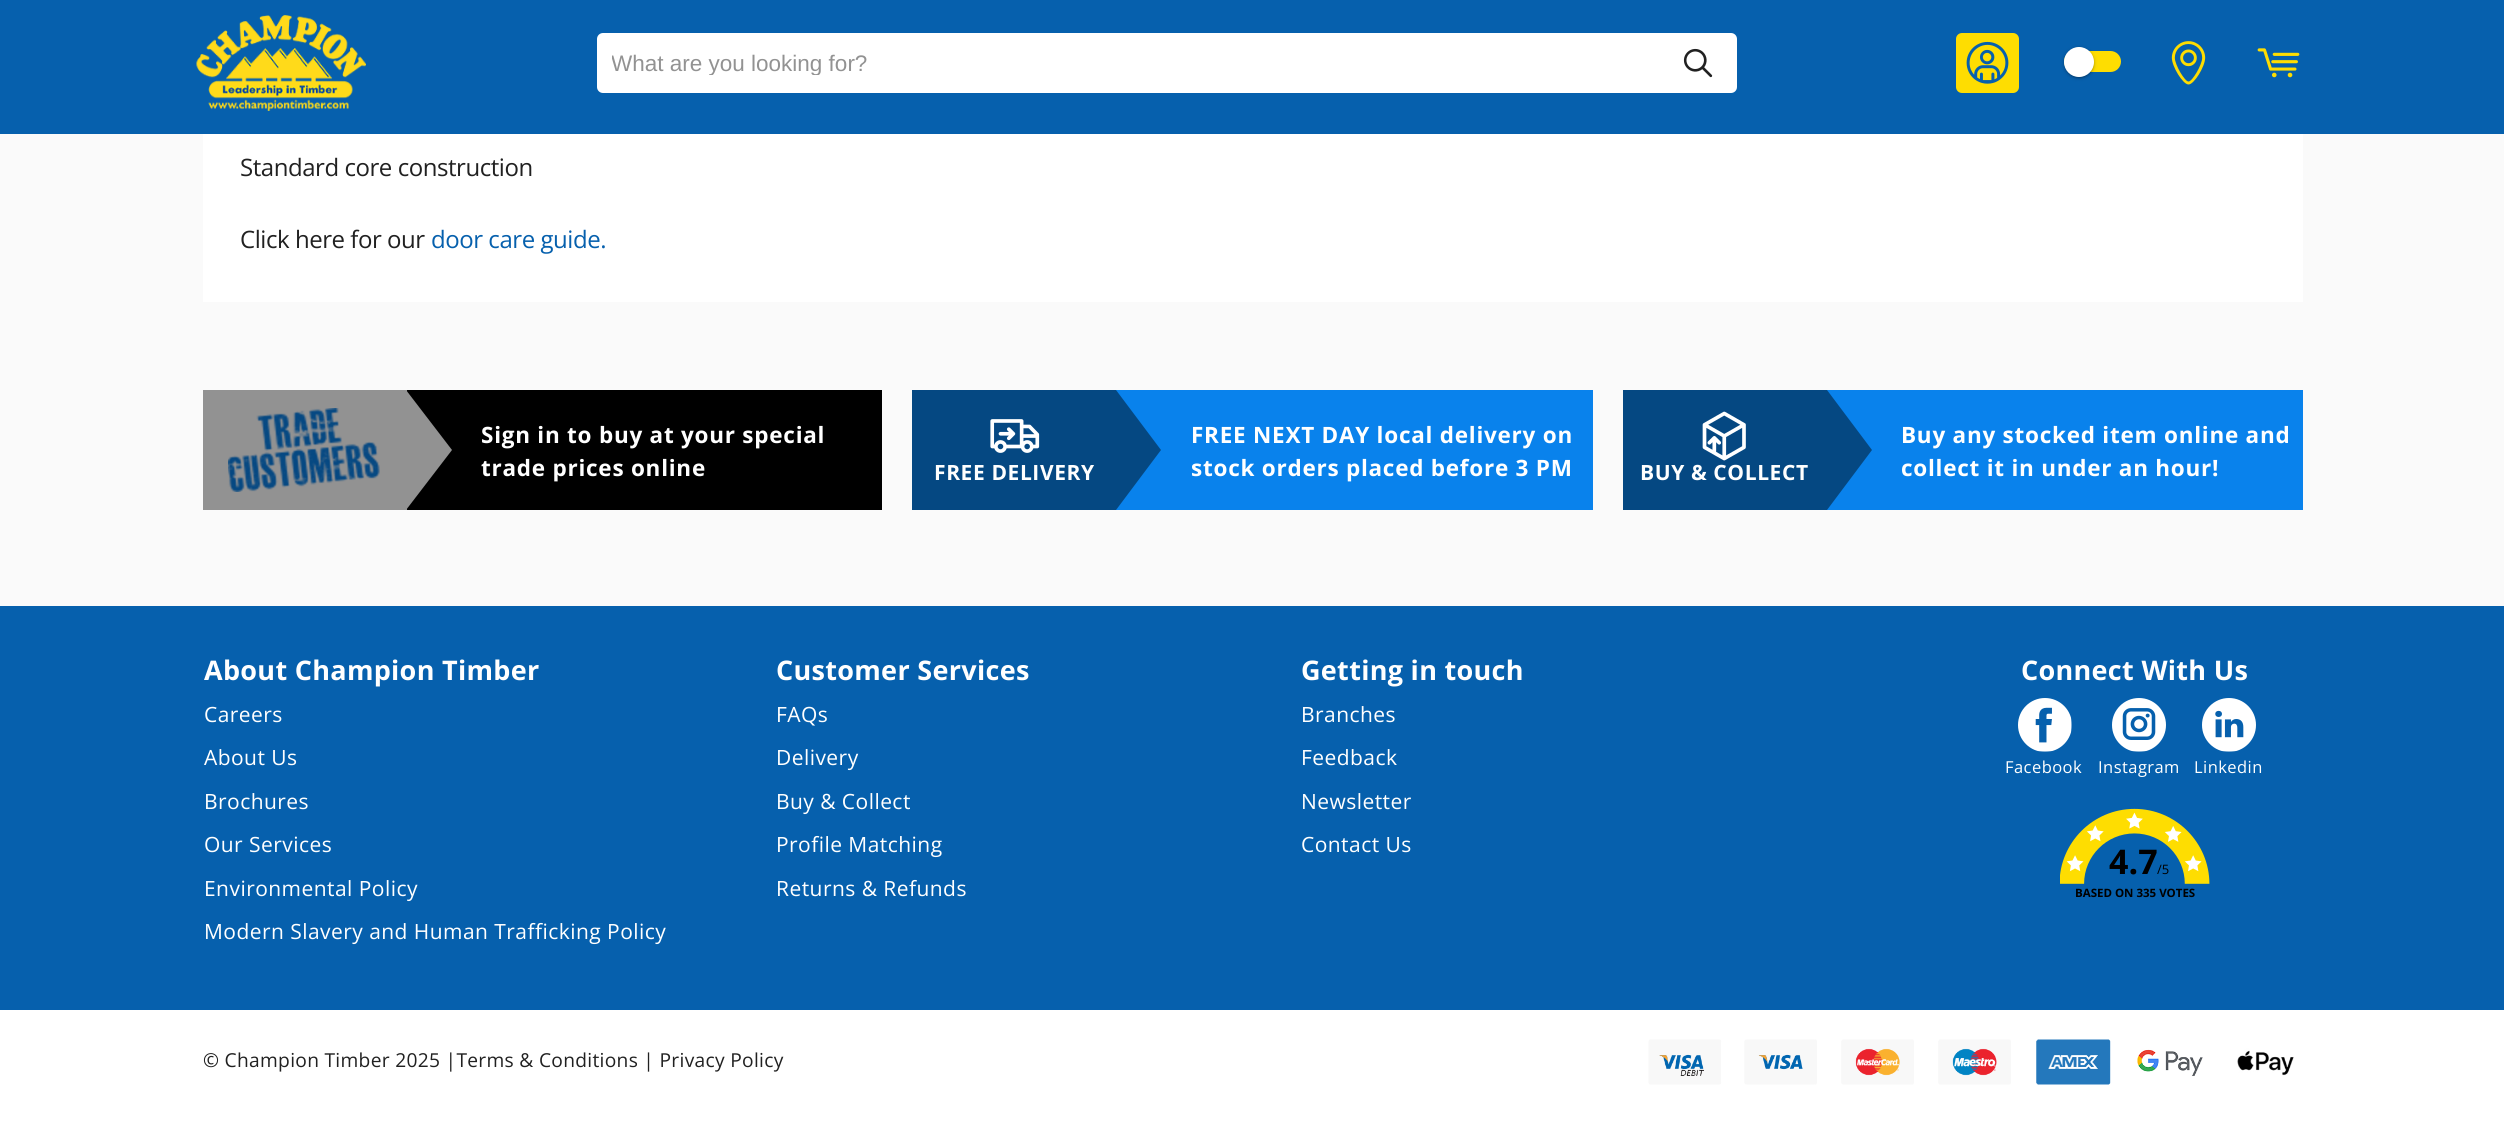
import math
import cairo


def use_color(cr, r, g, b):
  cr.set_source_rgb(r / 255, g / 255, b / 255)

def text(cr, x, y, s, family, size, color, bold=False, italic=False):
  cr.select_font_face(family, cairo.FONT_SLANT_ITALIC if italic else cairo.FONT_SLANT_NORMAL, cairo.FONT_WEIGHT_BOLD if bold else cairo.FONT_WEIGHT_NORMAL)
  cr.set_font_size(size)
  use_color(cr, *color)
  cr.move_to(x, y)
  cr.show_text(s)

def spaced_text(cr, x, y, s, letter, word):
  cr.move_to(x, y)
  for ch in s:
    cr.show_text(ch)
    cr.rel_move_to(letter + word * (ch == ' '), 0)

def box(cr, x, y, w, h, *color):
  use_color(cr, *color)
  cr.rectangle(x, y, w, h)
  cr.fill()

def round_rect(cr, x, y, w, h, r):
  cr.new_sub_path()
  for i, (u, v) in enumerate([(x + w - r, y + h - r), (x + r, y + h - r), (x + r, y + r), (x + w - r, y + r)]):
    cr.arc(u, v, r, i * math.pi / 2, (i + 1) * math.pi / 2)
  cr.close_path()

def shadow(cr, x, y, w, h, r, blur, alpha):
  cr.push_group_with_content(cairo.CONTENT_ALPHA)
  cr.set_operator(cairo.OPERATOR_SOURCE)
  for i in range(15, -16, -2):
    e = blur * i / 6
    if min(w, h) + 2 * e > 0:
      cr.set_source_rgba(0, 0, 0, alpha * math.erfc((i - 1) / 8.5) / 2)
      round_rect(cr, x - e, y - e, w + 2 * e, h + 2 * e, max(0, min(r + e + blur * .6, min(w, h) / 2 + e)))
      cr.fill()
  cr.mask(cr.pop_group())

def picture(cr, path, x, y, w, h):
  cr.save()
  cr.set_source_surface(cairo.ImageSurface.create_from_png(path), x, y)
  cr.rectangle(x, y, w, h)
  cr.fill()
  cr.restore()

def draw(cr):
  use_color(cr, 250, 250, 250)
  cr.paint()
  box(cr, 0, 0, 2504, 134, 6, 96, 173)
  picture(cr, "img_01.png", 196, 15, 170, 96)
  use_color(cr, 255, 255, 255)
  round_rect(cr, 597, 33, 1140, 60, 6)
  cr.fill()
  picture(cr, "img_02.png", 1683, 48, 30, 30)
  use_color(cr, 254, 221, 1)
  round_rect(cr, 1956, 33, 63, 60, 6)
  cr.fill()
  picture(cr, "img_03.png", 1966, 41, 43, 43)
  round_rect(cr, 2064, 51, 57, 21, 10.5)
  cr.fill()
  use_color(cr, 0, 0, 0)
  shadow(cr, 2064, 48, 30, 30, 15, 2, 0.2)
  shadow(cr, 2066, 51, 27, 27, 13.5, 1, 0.12)
  shadow(cr, 2064, 48, 30, 30, 15, 1, 0.14)
  use_color(cr, 255, 255, 255)
  cr.arc(2079, 62, 15, 0, 2 * math.pi)
  cr.fill()
  picture(cr, "img_04.png", 2171, 41, 35, 44)
  picture(cr, "img_05.png", 2257, 48, 43, 30)
  box(cr, 203, 134, 2100, 168, 255, 255, 255)
  box(cr, 203, 390, 204, 120, 146, 146, 146)
  picture(cr, "img_06.png", 228, 408, 152, 84)
  box(cr, 407, 390, 475, 120, 0, 0, 0)
  use_color(cr, 146, 146, 146)
  cr.new_path()
  cr.move_to(406, 510)
  cr.line_to(406, 390)
  cr.line_to(452, 450)
  cr.close_path()
  cr.fill()
  box(cr, 1116, 390, 477, 120, 9, 130, 236)
  box(cr, 912, 390, 204, 120, 5, 72, 130)
  picture(cr, "img_07.png", 990, 419, 50, 34)
  cr.new_path()
  cr.move_to(1116, 510)
  cr.line_to(1116, 390)
  cr.line_to(1161, 450)
  cr.close_path()
  cr.fill()
  box(cr, 1827, 390, 476, 120, 9, 130, 236)
  box(cr, 1623, 390, 204, 120, 5, 72, 130)
  picture(cr, "img_08.png", 1702, 411, 44, 50)
  cr.new_path()
  cr.move_to(1827, 510)
  cr.line_to(1827, 390)
  cr.line_to(1872, 450)
  cr.close_path()
  cr.fill()
  box(cr, 0, 606, 2504, 404, 6, 96, 173)
  picture(cr, "img_09.png", 2018, 698, 54, 54)
  picture(cr, "img_10.png", 2112, 698, 54, 54)
  picture(cr, "img_11.png", 2202, 698, 54, 54)
  picture(cr, "img_12.png", 2060, 808, 150, 76)
  box(cr, 0, 1010, 2504, 111, 255, 255, 255)
  picture(cr, "img_13.png", 1648, 1039, 646, 46)
  cr.save()
  cr.rectangle(612, 50, 1110, 25)
  cr.clip()
  text(cr, 611, 71, "What are you looking for?", "Liberation Sans", 22.5, (146, 146, 146))
  cr.restore()
  cr.select_font_face("Open Sans")
  cr.set_font_size(24)
  use_color(cr, 33, 33, 33)
  spaced_text(cr, 240, 176, "Standard core construction", -0.45, 0)
  spaced_text(cr, 240, 248, "Click here for our", -0.45, 0)
  use_color(cr, 6, 96, 173)
  spaced_text(cr, 431, 248, "door care guide.", -0.45, 0)
  cr.select_font_face("Open Sans", cairo.FONT_SLANT_NORMAL, cairo.FONT_WEIGHT_BOLD)
  cr.set_font_size(22.5)
  use_color(cr, 255, 255, 255)
  spaced_text(cr, 481, 443, "Sign in to buy at your special", 0.75, 0)
  spaced_text(cr, 481, 476, "trade prices online", 0.75, 0)
  cr.set_font_size(21)
  spaced_text(cr, 934, 480, "FREE DELIVERY", 0.6, 0)
  cr.set_font_size(22.5)
  spaced_text(cr, 1191, 443, "FREE NEXT DAY local delivery on", 0.75, 0)
  spaced_text(cr, 1191, 476, "stock orders placed before 3 PM", 0.75, 0)
  cr.set_font_size(21)
  spaced_text(cr, 1640, 480, "BUY & COLLECT", 0.6, 0)
  cr.set_font_size(22.5)
  spaced_text(cr, 1901, 443, "Buy any stocked item online and", 0.75, 0)
  spaced_text(cr, 1901, 476, "collect it in under an hour!", 0.75, 0)
  cr.set_font_size(27)
  spaced_text(cr, 204, 680, "About Champion Timber", 0.3, 0)
  cr.select_font_face("Open Sans")
  cr.set_font_size(21)
  spaced_text(cr, 204, 722, "Careers", 0.45, 0)
  spaced_text(cr, 204, 765, "About Us", 0.45, 0)
  spaced_text(cr, 204, 809, "Brochures", 0.45, 0)
  spaced_text(cr, 204, 852, "Our Services", 0.45, 0)
  spaced_text(cr, 204, 896, "Environmental Policy", 0.45, 0)
  spaced_text(cr, 204, 939, "Modern Slavery and Human Trafficking Policy", 0.45, 0)
  cr.select_font_face("Open Sans", cairo.FONT_SLANT_NORMAL, cairo.FONT_WEIGHT_BOLD)
  cr.set_font_size(27)
  spaced_text(cr, 776, 680, "Customer Services", 0.3, 0)
  cr.select_font_face("Open Sans")
  cr.set_font_size(21)
  spaced_text(cr, 776, 722, "FAQs", 0.45, 0)
  spaced_text(cr, 776, 765, "Delivery", 0.45, 0)
  spaced_text(cr, 776, 809, "Buy & Collect", 0.45, 0)
  spaced_text(cr, 776, 852, "Profile Matching", 0.45, 0)
  spaced_text(cr, 776, 896, "Returns & Refunds", 0.45, 0)
  cr.select_font_face("Open Sans", cairo.FONT_SLANT_NORMAL, cairo.FONT_WEIGHT_BOLD)
  cr.set_font_size(27)
  spaced_text(cr, 1301, 680, "Getting in touch", 0.3, 0)
  cr.select_font_face("Open Sans")
  cr.set_font_size(21)
  spaced_text(cr, 1301, 722, "Branches", 0.45, 0)
  spaced_text(cr, 1301, 765, "Feedback", 0.45, 0)
  spaced_text(cr, 1301, 809, "Newsletter", 0.45, 0)
  spaced_text(cr, 1301, 852, "Contact Us", 0.45, 0)
  cr.select_font_face("Open Sans", cairo.FONT_SLANT_NORMAL, cairo.FONT_WEIGHT_BOLD)
  cr.set_font_size(27)
  spaced_text(cr, 2021, 680, "Connect With Us", 0.3, 0)
  cr.select_font_face("Open Sans")
  cr.set_font_size(16.5)
  spaced_text(cr, 2005, 773, "Facebook", 0.45, 0)
  spaced_text(cr, 2098, 773, "Instagram", 0.45, 0)
  spaced_text(cr, 2194, 773, "Linkedin", 0.45, 0)
  text(cr, 2109, 874, "4.7", "Open Sans", 34, (0, 0, 0), bold=True)
  text(cr, 2157, 874, "/5", "Open Sans", 13, (0, 0, 0))
  text(cr, 2075, 897, "BASED ON 335 VOTES", "Open Sans", 11.5, (0, 0, 0), bold=True)
  cr.select_font_face("Open Sans")
  cr.set_font_size(19.2)
  use_color(cr, 33, 33, 33)
  spaced_text(cr, 203, 1067, "© Champion Timber 2025 |Terms & Conditions | Privacy Policy", 0.3, 0)


surface = cairo.ImageSurface(cairo.FORMAT_RGB24, 2504, 1121)
cr = cairo.Context(surface)
options = cairo.FontOptions()
options.set_hint_metrics(cairo.HINT_METRICS_OFF)
options.set_hint_style(cairo.HINT_STYLE_NONE)
cr.set_font_options(options)
cr.set_miter_limit(4)
draw(cr)
surface.write_to_png("out.png")
